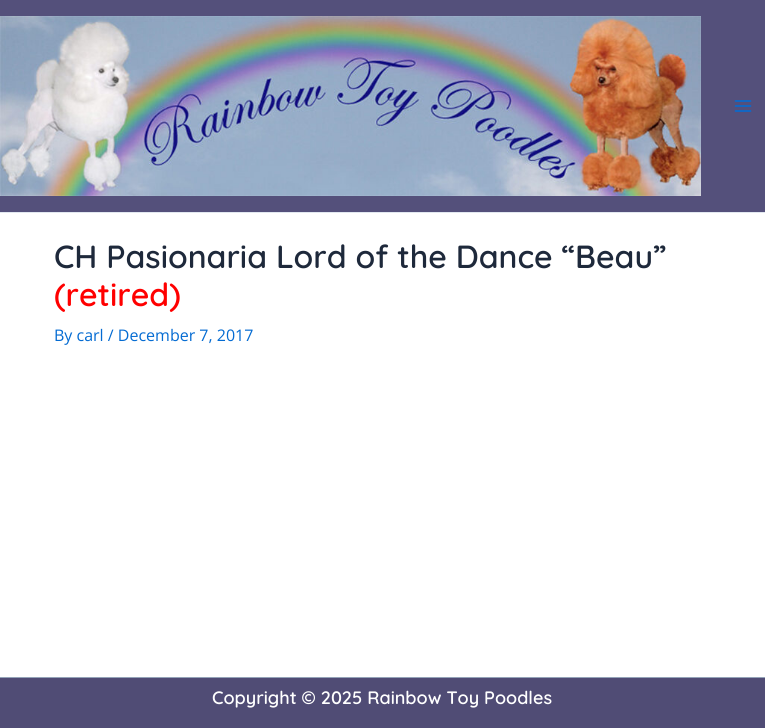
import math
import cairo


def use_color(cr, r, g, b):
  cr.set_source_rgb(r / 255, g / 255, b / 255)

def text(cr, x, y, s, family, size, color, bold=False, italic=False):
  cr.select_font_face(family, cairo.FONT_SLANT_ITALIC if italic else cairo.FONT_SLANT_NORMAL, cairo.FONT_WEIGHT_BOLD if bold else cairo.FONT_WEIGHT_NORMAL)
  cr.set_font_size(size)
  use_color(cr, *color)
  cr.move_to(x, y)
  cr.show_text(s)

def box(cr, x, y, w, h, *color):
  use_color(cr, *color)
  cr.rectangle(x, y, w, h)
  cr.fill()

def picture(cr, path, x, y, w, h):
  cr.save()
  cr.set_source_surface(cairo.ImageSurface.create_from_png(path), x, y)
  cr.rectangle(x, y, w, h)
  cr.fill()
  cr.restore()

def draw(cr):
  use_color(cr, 255, 255, 255)
  cr.paint()
  box(cr, 0, 0, 765, 212, 84, 80, 123)
  box(cr, 0, 212, 765, 1, 226, 232, 240)
  picture(cr, "img_01.png", 0, 16, 701, 180)
  picture(cr, "img_02.png", 734, 100, 18, 12)
  box(cr, 0, 678, 765, 50, 80, 76, 117)
  box(cr, 0, 677, 765, 1, 148, 163, 184)
  text(cr, 54, 268, "CH Pasionaria Lord of the Dance “Beau”", "Quicksand SemiBold", 32, (30, 41, 59))
  text(cr, 54, 306, "(retired)", "Quicksand SemiBold", 32, (255, 0, 0))
  text(cr, 54, 341, "By carl / December 7, 2017", "Open Sans", 16, (4, 107, 210))
  text(cr, 212, 704, "Copyright © 2025 Rainbow Toy Poodles", "Quicksand SemiBold", 18, (255, 255, 255))


surface = cairo.ImageSurface(cairo.FORMAT_RGB24, 765, 728)
cr = cairo.Context(surface)
options = cairo.FontOptions()
options.set_hint_metrics(cairo.HINT_METRICS_OFF)
options.set_hint_style(cairo.HINT_STYLE_NONE)
cr.set_font_options(options)
cr.set_miter_limit(4)
draw(cr)
surface.write_to_png("out.png")
